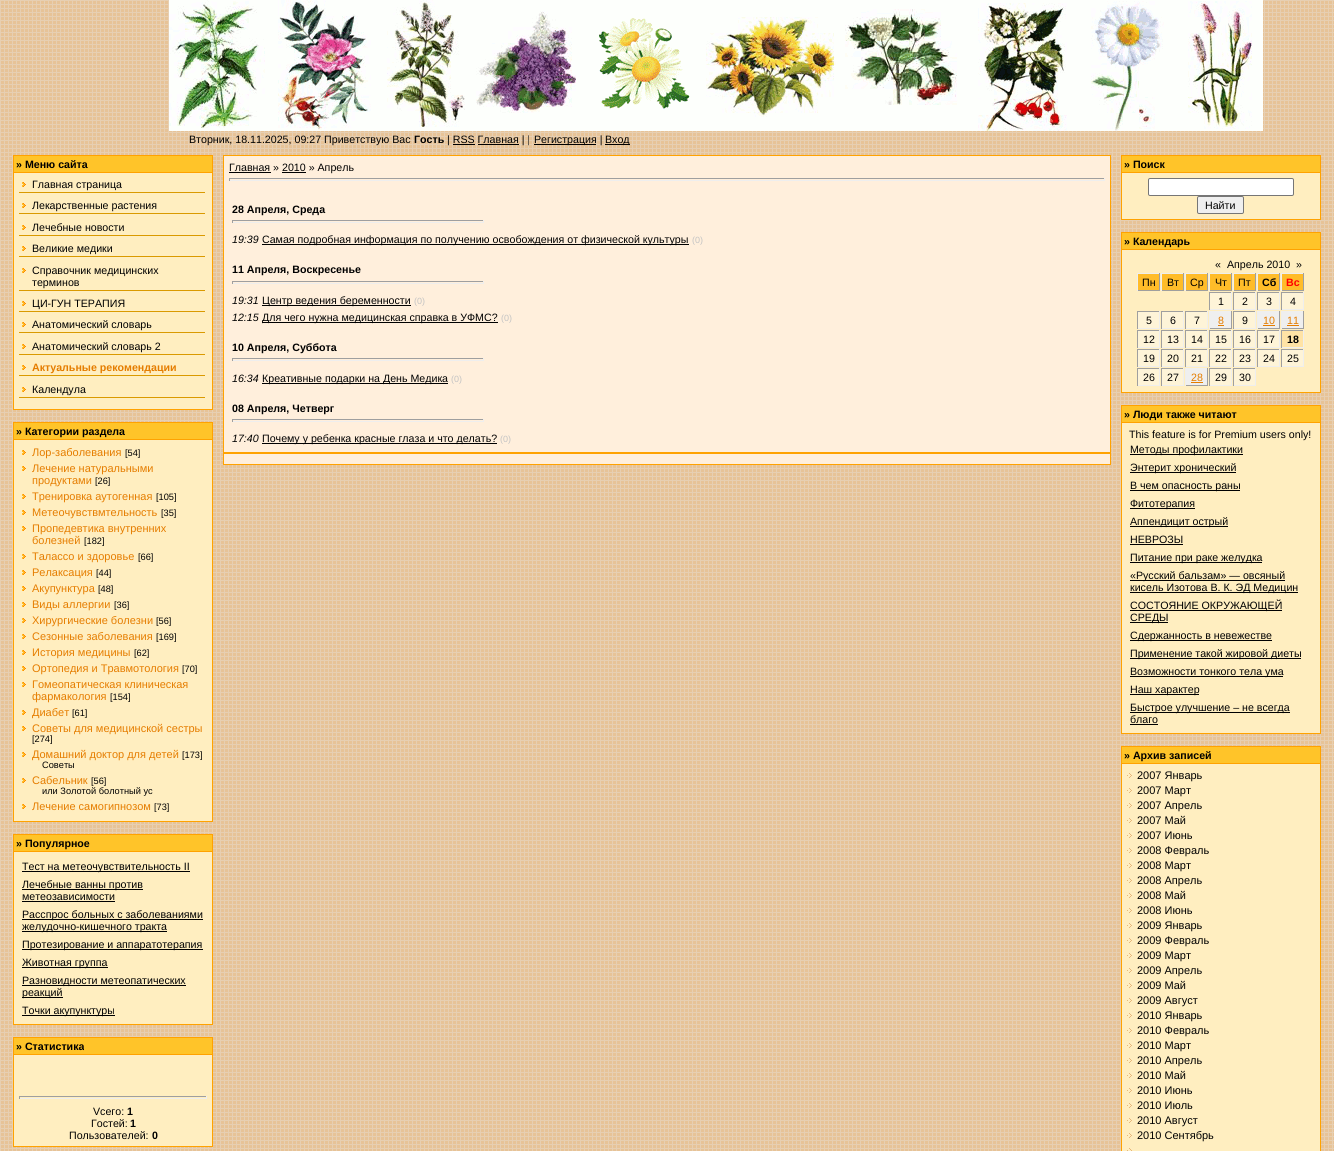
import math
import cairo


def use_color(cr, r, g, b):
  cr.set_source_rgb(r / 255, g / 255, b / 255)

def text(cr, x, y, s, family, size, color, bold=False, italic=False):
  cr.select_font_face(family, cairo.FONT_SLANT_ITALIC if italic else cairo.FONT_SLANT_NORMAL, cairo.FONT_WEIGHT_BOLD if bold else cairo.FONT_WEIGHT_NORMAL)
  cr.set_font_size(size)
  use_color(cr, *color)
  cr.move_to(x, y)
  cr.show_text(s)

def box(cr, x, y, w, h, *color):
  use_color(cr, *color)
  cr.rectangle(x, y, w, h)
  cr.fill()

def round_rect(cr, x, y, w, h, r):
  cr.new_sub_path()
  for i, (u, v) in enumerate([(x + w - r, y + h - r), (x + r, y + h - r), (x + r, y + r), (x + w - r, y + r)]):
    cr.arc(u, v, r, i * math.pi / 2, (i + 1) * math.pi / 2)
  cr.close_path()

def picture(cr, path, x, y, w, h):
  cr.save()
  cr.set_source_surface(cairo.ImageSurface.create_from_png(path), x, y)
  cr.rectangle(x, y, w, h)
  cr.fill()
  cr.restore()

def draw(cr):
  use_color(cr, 255, 255, 255)
  cr.paint()
  picture(cr, "img_01.png", 0, 0, 1334, 1151)
  picture(cr, "img_02.png", 169, 0, 1094, 131)
  box(cr, 534, 144, 62, 1, 0, 0, 0)
  box(cr, 605, 144, 25, 1, 0, 0, 0)
  box(cr, 453, 144, 22, 1, 0, 0, 0)
  box(cr, 478, 144, 41, 1, 0, 0, 0)
  box(cr, 13, 155, 200, 255, 255, 162, 0)
  box(cr, 14, 156, 198, 16, 255, 196, 41)
  box(cr, 14, 173, 198, 236, 255, 238, 192)
  picture(cr, "img_03.png", 22, 182, 4, 5)
  box(cr, 19, 192, 186, 1, 218, 154, 0)
  picture(cr, "img_03.png", 22, 203, 4, 5)
  box(cr, 19, 213, 186, 1, 218, 154, 0)
  picture(cr, "img_03.png", 22, 225, 4, 5)
  box(cr, 19, 235, 186, 1, 218, 154, 0)
  picture(cr, "img_03.png", 22, 246, 4, 5)
  box(cr, 19, 256, 186, 1, 218, 154, 0)
  picture(cr, "img_03.png", 22, 268, 4, 5)
  box(cr, 19, 290, 186, 1, 218, 154, 0)
  picture(cr, "img_03.png", 22, 301, 4, 5)
  box(cr, 19, 311, 186, 1, 218, 154, 0)
  picture(cr, "img_03.png", 22, 322, 4, 5)
  box(cr, 19, 332, 186, 1, 218, 154, 0)
  picture(cr, "img_03.png", 22, 344, 4, 5)
  box(cr, 19, 354, 186, 1, 218, 154, 0)
  picture(cr, "img_03.png", 22, 365, 4, 5)
  box(cr, 19, 375, 186, 1, 218, 154, 0)
  picture(cr, "img_03.png", 22, 387, 4, 5)
  box(cr, 19, 397, 186, 1, 218, 154, 0)
  box(cr, 13, 422, 200, 400, 255, 162, 0)
  box(cr, 14, 423, 198, 16, 255, 196, 41)
  box(cr, 14, 440, 198, 381, 255, 238, 192)
  picture(cr, "img_03.png", 22, 450, 4, 5)
  picture(cr, "img_03.png", 22, 466, 4, 5)
  picture(cr, "img_03.png", 22, 494, 4, 5)
  picture(cr, "img_03.png", 22, 510, 4, 5)
  picture(cr, "img_03.png", 22, 526, 4, 5)
  picture(cr, "img_03.png", 22, 554, 4, 5)
  picture(cr, "img_03.png", 22, 570, 4, 5)
  picture(cr, "img_03.png", 22, 586, 4, 5)
  picture(cr, "img_03.png", 22, 602, 4, 5)
  picture(cr, "img_03.png", 22, 618, 4, 5)
  picture(cr, "img_03.png", 22, 634, 4, 5)
  picture(cr, "img_03.png", 22, 650, 4, 5)
  picture(cr, "img_03.png", 22, 666, 4, 5)
  picture(cr, "img_03.png", 22, 682, 4, 5)
  picture(cr, "img_03.png", 22, 710, 4, 5)
  picture(cr, "img_03.png", 22, 726, 4, 5)
  picture(cr, "img_03.png", 22, 752, 4, 5)
  picture(cr, "img_03.png", 22, 778, 4, 5)
  picture(cr, "img_03.png", 22, 804, 4, 5)
  box(cr, 13, 834, 200, 191, 255, 162, 0)
  box(cr, 14, 835, 198, 16, 255, 196, 41)
  box(cr, 14, 852, 198, 172, 255, 238, 192)
  box(cr, 22, 871, 168, 1, 0, 0, 0)
  box(cr, 22, 889, 121, 1, 0, 0, 0)
  box(cr, 22, 901, 93, 1, 0, 0, 0)
  box(cr, 22, 919, 181, 1, 0, 0, 0)
  box(cr, 22, 931, 145, 1, 0, 0, 0)
  box(cr, 22, 949, 181, 1, 0, 0, 0)
  box(cr, 22, 967, 86, 1, 0, 0, 0)
  box(cr, 22, 985, 164, 1, 0, 0, 0)
  box(cr, 22, 997, 41, 1, 0, 0, 0)
  box(cr, 22, 1015, 93, 1, 0, 0, 0)
  box(cr, 13, 1037, 200, 110, 255, 162, 0)
  box(cr, 14, 1038, 198, 16, 255, 196, 41)
  box(cr, 14, 1055, 198, 91, 255, 238, 192)
  box(cr, 19, 1096, 188, 1, 159, 159, 159)
  box(cr, 206, 1096, 1, 3, 238, 238, 238)
  box(cr, 19, 1098, 188, 1, 238, 238, 238)
  box(cr, 19, 1096, 1, 3, 159, 159, 159)
  cr.rectangle(223.5, 155.5, 887, 297)
  use_color(cr, 255, 162, 0)
  cr.set_line_width(1)
  cr.stroke()
  box(cr, 224, 156, 886, 296, 255, 239, 220)
  box(cr, 229, 172, 42, 1, 0, 0, 0)
  box(cr, 282, 172, 24, 1, 0, 0, 0)
  box(cr, 229, 178, 876, 1, 159, 159, 159)
  box(cr, 1104, 178, 1, 3, 238, 238, 238)
  box(cr, 229, 180, 876, 1, 238, 238, 238)
  box(cr, 229, 178, 1, 3, 159, 159, 159)
  box(cr, 232, 220, 252, 1, 159, 159, 159)
  box(cr, 483, 220, 1, 3, 238, 238, 238)
  box(cr, 232, 222, 252, 1, 238, 238, 238)
  box(cr, 232, 220, 1, 3, 159, 159, 159)
  box(cr, 262, 244, 427, 1, 0, 0, 0)
  box(cr, 232, 281, 252, 1, 159, 159, 159)
  box(cr, 483, 281, 1, 3, 238, 238, 238)
  box(cr, 232, 283, 252, 1, 238, 238, 238)
  box(cr, 232, 281, 1, 3, 159, 159, 159)
  box(cr, 262, 305, 149, 1, 0, 0, 0)
  box(cr, 262, 322, 236, 1, 0, 0, 0)
  box(cr, 232, 358, 252, 1, 159, 159, 159)
  box(cr, 483, 358, 1, 3, 238, 238, 238)
  box(cr, 232, 360, 252, 1, 238, 238, 238)
  box(cr, 232, 358, 1, 3, 159, 159, 159)
  box(cr, 262, 383, 186, 1, 0, 0, 0)
  box(cr, 232, 419, 252, 1, 159, 159, 159)
  box(cr, 483, 419, 1, 3, 238, 238, 238)
  box(cr, 232, 421, 252, 1, 238, 238, 238)
  box(cr, 232, 419, 1, 3, 159, 159, 159)
  box(cr, 262, 443, 235, 1, 0, 0, 0)
  cr.rectangle(223.5, 453.5, 887, 11)
  use_color(cr, 255, 162, 0)
  cr.stroke()
  box(cr, 224, 454, 886, 10, 255, 239, 220)
  box(cr, 1121, 155, 200, 65, 255, 162, 0)
  box(cr, 1122, 156, 198, 16, 255, 196, 41)
  box(cr, 1122, 173, 198, 46, 255, 238, 192)
  use_color(cr, 255, 255, 255)
  round_rect(cr, 1148.5, 178.5, 145, 17, 1.5)
  cr.fill_preserve()
  use_color(cr, 118, 118, 118)
  cr.stroke()
  use_color(cr, 239, 239, 239)
  round_rect(cr, 1197.5, 196.5, 46, 17, 1.5)
  cr.fill_preserve()
  use_color(cr, 118, 118, 118)
  cr.stroke()
  box(cr, 1121, 232, 200, 161, 255, 162, 0)
  box(cr, 1122, 233, 198, 16, 255, 196, 41)
  box(cr, 1122, 250, 198, 142, 255, 238, 192)
  box(cr, 1138, 274, 21, 16, 255, 188, 41)
  box(cr, 1137, 273, 23, 1, 238, 238, 238)
  box(cr, 1159, 273, 1, 18, 159, 159, 159)
  box(cr, 1137, 290, 23, 1, 159, 159, 159)
  box(cr, 1137, 273, 1, 18, 238, 238, 238)
  box(cr, 1162, 274, 21, 16, 255, 188, 41)
  box(cr, 1161, 273, 23, 1, 238, 238, 238)
  box(cr, 1183, 273, 1, 18, 159, 159, 159)
  box(cr, 1161, 290, 23, 1, 159, 159, 159)
  box(cr, 1161, 273, 1, 18, 238, 238, 238)
  box(cr, 1186, 274, 21, 16, 255, 188, 41)
  box(cr, 1185, 273, 23, 1, 238, 238, 238)
  box(cr, 1207, 273, 1, 18, 159, 159, 159)
  box(cr, 1185, 290, 23, 1, 159, 159, 159)
  box(cr, 1185, 273, 1, 18, 238, 238, 238)
  box(cr, 1210, 274, 21, 16, 255, 188, 41)
  box(cr, 1209, 273, 23, 1, 238, 238, 238)
  box(cr, 1231, 273, 1, 18, 159, 159, 159)
  box(cr, 1209, 290, 23, 1, 159, 159, 159)
  box(cr, 1209, 273, 1, 18, 238, 238, 238)
  box(cr, 1234, 274, 21, 16, 255, 188, 41)
  box(cr, 1233, 273, 23, 1, 238, 238, 238)
  box(cr, 1255, 273, 1, 18, 159, 159, 159)
  box(cr, 1233, 290, 23, 1, 159, 159, 159)
  box(cr, 1233, 273, 1, 18, 238, 238, 238)
  box(cr, 1258, 274, 21, 16, 255, 188, 41)
  box(cr, 1257, 273, 23, 1, 238, 238, 238)
  box(cr, 1279, 273, 1, 18, 159, 159, 159)
  box(cr, 1257, 290, 23, 1, 159, 159, 159)
  box(cr, 1257, 273, 1, 18, 238, 238, 238)
  box(cr, 1282, 274, 21, 16, 255, 188, 41)
  box(cr, 1281, 273, 23, 1, 238, 238, 238)
  box(cr, 1303, 273, 1, 18, 159, 159, 159)
  box(cr, 1281, 290, 23, 1, 159, 159, 159)
  box(cr, 1281, 273, 1, 18, 238, 238, 238)
  box(cr, 1210, 293, 21, 16, 254, 244, 216)
  box(cr, 1209, 292, 23, 1, 159, 159, 159)
  box(cr, 1231, 292, 1, 18, 238, 238, 238)
  box(cr, 1209, 309, 23, 1, 238, 238, 238)
  box(cr, 1209, 292, 1, 18, 159, 159, 159)
  box(cr, 1234, 293, 21, 16, 254, 244, 216)
  box(cr, 1233, 292, 23, 1, 159, 159, 159)
  box(cr, 1255, 292, 1, 18, 238, 238, 238)
  box(cr, 1233, 309, 23, 1, 238, 238, 238)
  box(cr, 1233, 292, 1, 18, 159, 159, 159)
  box(cr, 1258, 293, 21, 16, 254, 244, 216)
  box(cr, 1257, 292, 23, 1, 159, 159, 159)
  box(cr, 1279, 292, 1, 18, 238, 238, 238)
  box(cr, 1257, 309, 23, 1, 238, 238, 238)
  box(cr, 1257, 292, 1, 18, 159, 159, 159)
  box(cr, 1282, 293, 21, 16, 254, 244, 216)
  box(cr, 1281, 292, 23, 1, 159, 159, 159)
  box(cr, 1303, 292, 1, 18, 238, 238, 238)
  box(cr, 1281, 309, 23, 1, 238, 238, 238)
  box(cr, 1281, 292, 1, 18, 159, 159, 159)
  box(cr, 1138, 312, 21, 16, 254, 244, 216)
  box(cr, 1137, 311, 23, 1, 159, 159, 159)
  box(cr, 1159, 311, 1, 18, 238, 238, 238)
  box(cr, 1137, 328, 23, 1, 238, 238, 238)
  box(cr, 1137, 311, 1, 18, 159, 159, 159)
  box(cr, 1162, 312, 21, 16, 254, 244, 216)
  box(cr, 1161, 311, 23, 1, 159, 159, 159)
  box(cr, 1183, 311, 1, 18, 238, 238, 238)
  box(cr, 1161, 328, 23, 1, 238, 238, 238)
  box(cr, 1161, 311, 1, 18, 159, 159, 159)
  box(cr, 1186, 312, 21, 16, 254, 244, 216)
  box(cr, 1185, 311, 23, 1, 159, 159, 159)
  box(cr, 1207, 311, 1, 18, 238, 238, 238)
  box(cr, 1185, 328, 23, 1, 238, 238, 238)
  box(cr, 1185, 311, 1, 18, 159, 159, 159)
  box(cr, 1210, 311, 21, 17, 239, 239, 239)
  box(cr, 1231, 311, 1, 18, 159, 159, 159)
  box(cr, 1209, 328, 23, 1, 159, 159, 159)
  box(cr, 1209, 311, 1, 18, 238, 238, 238)
  box(cr, 1218, 325, 6, 1, 229, 125, 0)
  box(cr, 1234, 312, 21, 16, 254, 244, 216)
  box(cr, 1233, 311, 23, 1, 159, 159, 159)
  box(cr, 1255, 311, 1, 18, 238, 238, 238)
  box(cr, 1233, 328, 23, 1, 238, 238, 238)
  box(cr, 1233, 311, 1, 18, 159, 159, 159)
  box(cr, 1258, 311, 21, 17, 239, 239, 239)
  box(cr, 1279, 311, 1, 18, 159, 159, 159)
  box(cr, 1257, 328, 23, 1, 159, 159, 159)
  box(cr, 1257, 311, 1, 18, 238, 238, 238)
  box(cr, 1263, 325, 12, 1, 229, 125, 0)
  box(cr, 1282, 311, 21, 17, 239, 239, 239)
  box(cr, 1303, 311, 1, 18, 159, 159, 159)
  box(cr, 1281, 328, 23, 1, 159, 159, 159)
  box(cr, 1281, 311, 1, 18, 238, 238, 238)
  box(cr, 1287, 325, 12, 1, 229, 125, 0)
  box(cr, 1138, 331, 21, 16, 254, 244, 216)
  box(cr, 1137, 330, 23, 1, 159, 159, 159)
  box(cr, 1159, 330, 1, 18, 238, 238, 238)
  box(cr, 1137, 347, 23, 1, 238, 238, 238)
  box(cr, 1137, 330, 1, 18, 159, 159, 159)
  box(cr, 1162, 331, 21, 16, 254, 244, 216)
  box(cr, 1161, 330, 23, 1, 159, 159, 159)
  box(cr, 1183, 330, 1, 18, 238, 238, 238)
  box(cr, 1161, 347, 23, 1, 238, 238, 238)
  box(cr, 1161, 330, 1, 18, 159, 159, 159)
  box(cr, 1186, 331, 21, 16, 254, 244, 216)
  box(cr, 1185, 330, 23, 1, 159, 159, 159)
  box(cr, 1207, 330, 1, 18, 238, 238, 238)
  box(cr, 1185, 347, 23, 1, 238, 238, 238)
  box(cr, 1185, 330, 1, 18, 159, 159, 159)
  box(cr, 1210, 331, 21, 16, 254, 244, 216)
  box(cr, 1209, 330, 23, 1, 159, 159, 159)
  box(cr, 1231, 330, 1, 18, 238, 238, 238)
  box(cr, 1209, 347, 23, 1, 238, 238, 238)
  box(cr, 1209, 330, 1, 18, 159, 159, 159)
  box(cr, 1234, 331, 21, 16, 254, 244, 216)
  box(cr, 1233, 330, 23, 1, 159, 159, 159)
  box(cr, 1255, 330, 1, 18, 238, 238, 238)
  box(cr, 1233, 347, 23, 1, 238, 238, 238)
  box(cr, 1233, 330, 1, 18, 159, 159, 159)
  box(cr, 1258, 331, 21, 16, 254, 244, 216)
  box(cr, 1257, 330, 23, 1, 159, 159, 159)
  box(cr, 1279, 330, 1, 18, 238, 238, 238)
  box(cr, 1257, 347, 23, 1, 238, 238, 238)
  box(cr, 1257, 330, 1, 18, 159, 159, 159)
  box(cr, 1282, 331, 21, 16, 255, 227, 165)
  box(cr, 1281, 330, 23, 1, 159, 159, 159)
  box(cr, 1303, 330, 1, 18, 238, 238, 238)
  box(cr, 1281, 347, 23, 1, 238, 238, 238)
  box(cr, 1281, 330, 1, 18, 159, 159, 159)
  box(cr, 1138, 350, 21, 16, 254, 244, 216)
  box(cr, 1137, 349, 23, 1, 159, 159, 159)
  box(cr, 1159, 349, 1, 18, 238, 238, 238)
  box(cr, 1137, 366, 23, 1, 238, 238, 238)
  box(cr, 1137, 349, 1, 18, 159, 159, 159)
  box(cr, 1162, 350, 21, 16, 254, 244, 216)
  box(cr, 1161, 349, 23, 1, 159, 159, 159)
  box(cr, 1183, 349, 1, 18, 238, 238, 238)
  box(cr, 1161, 366, 23, 1, 238, 238, 238)
  box(cr, 1161, 349, 1, 18, 159, 159, 159)
  box(cr, 1186, 350, 21, 16, 254, 244, 216)
  box(cr, 1185, 349, 23, 1, 159, 159, 159)
  box(cr, 1207, 349, 1, 18, 238, 238, 238)
  box(cr, 1185, 366, 23, 1, 238, 238, 238)
  box(cr, 1185, 349, 1, 18, 159, 159, 159)
  box(cr, 1210, 350, 21, 16, 254, 244, 216)
  box(cr, 1209, 349, 23, 1, 159, 159, 159)
  box(cr, 1231, 349, 1, 18, 238, 238, 238)
  box(cr, 1209, 366, 23, 1, 238, 238, 238)
  box(cr, 1209, 349, 1, 18, 159, 159, 159)
  box(cr, 1234, 350, 21, 16, 254, 244, 216)
  box(cr, 1233, 349, 23, 1, 159, 159, 159)
  box(cr, 1255, 349, 1, 18, 238, 238, 238)
  box(cr, 1233, 366, 23, 1, 238, 238, 238)
  box(cr, 1233, 349, 1, 18, 159, 159, 159)
  box(cr, 1258, 350, 21, 16, 254, 244, 216)
  box(cr, 1257, 349, 23, 1, 159, 159, 159)
  box(cr, 1279, 349, 1, 18, 238, 238, 238)
  box(cr, 1257, 366, 23, 1, 238, 238, 238)
  box(cr, 1257, 349, 1, 18, 159, 159, 159)
  box(cr, 1282, 350, 21, 16, 254, 244, 216)
  box(cr, 1281, 349, 23, 1, 159, 159, 159)
  box(cr, 1303, 349, 1, 18, 238, 238, 238)
  box(cr, 1281, 366, 23, 1, 238, 238, 238)
  box(cr, 1281, 349, 1, 18, 159, 159, 159)
  box(cr, 1138, 369, 21, 16, 254, 244, 216)
  box(cr, 1137, 368, 23, 1, 159, 159, 159)
  box(cr, 1159, 368, 1, 18, 238, 238, 238)
  box(cr, 1137, 385, 23, 1, 238, 238, 238)
  box(cr, 1137, 368, 1, 18, 159, 159, 159)
  box(cr, 1162, 369, 21, 16, 254, 244, 216)
  box(cr, 1161, 368, 23, 1, 159, 159, 159)
  box(cr, 1183, 368, 1, 18, 238, 238, 238)
  box(cr, 1161, 385, 23, 1, 238, 238, 238)
  box(cr, 1161, 368, 1, 18, 159, 159, 159)
  box(cr, 1186, 368, 21, 17, 239, 239, 239)
  box(cr, 1207, 368, 1, 18, 159, 159, 159)
  box(cr, 1185, 385, 23, 1, 159, 159, 159)
  box(cr, 1185, 368, 1, 18, 238, 238, 238)
  box(cr, 1191, 382, 12, 1, 229, 125, 0)
  box(cr, 1210, 369, 21, 16, 254, 244, 216)
  box(cr, 1209, 368, 23, 1, 159, 159, 159)
  box(cr, 1231, 368, 1, 18, 238, 238, 238)
  box(cr, 1209, 385, 23, 1, 238, 238, 238)
  box(cr, 1209, 368, 1, 18, 159, 159, 159)
  box(cr, 1234, 369, 21, 16, 254, 244, 216)
  box(cr, 1233, 368, 23, 1, 159, 159, 159)
  box(cr, 1255, 368, 1, 18, 238, 238, 238)
  box(cr, 1233, 385, 23, 1, 238, 238, 238)
  box(cr, 1233, 368, 1, 18, 159, 159, 159)
  box(cr, 1121, 405, 200, 329, 255, 162, 0)
  box(cr, 1122, 406, 198, 16, 255, 196, 41)
  box(cr, 1122, 423, 198, 310, 255, 238, 192)
  box(cr, 1130, 454, 113, 1, 0, 0, 0)
  box(cr, 1130, 472, 106, 1, 0, 0, 0)
  box(cr, 1130, 490, 110, 1, 0, 0, 0)
  box(cr, 1130, 508, 65, 1, 0, 0, 0)
  box(cr, 1130, 526, 98, 1, 0, 0, 0)
  box(cr, 1130, 544, 53, 1, 0, 0, 0)
  box(cr, 1130, 562, 132, 1, 0, 0, 0)
  box(cr, 1130, 580, 155, 1, 0, 0, 0)
  box(cr, 1130, 592, 168, 1, 0, 0, 0)
  box(cr, 1130, 610, 152, 1, 0, 0, 0)
  box(cr, 1130, 622, 38, 1, 0, 0, 0)
  box(cr, 1130, 640, 142, 1, 0, 0, 0)
  box(cr, 1130, 658, 171, 1, 0, 0, 0)
  box(cr, 1130, 676, 153, 1, 0, 0, 0)
  box(cr, 1130, 694, 69, 1, 0, 0, 0)
  box(cr, 1130, 712, 160, 1, 0, 0, 0)
  box(cr, 1130, 724, 28, 1, 0, 0, 0)
  box(cr, 1121, 746, 200, 405, 255, 162, 0)
  box(cr, 1122, 747, 198, 16, 255, 196, 41)
  box(cr, 1122, 764, 198, 387, 255, 238, 192)
  picture(cr, "img_04.png", 1127, 773, 5, 5)
  picture(cr, "img_04.png", 1127, 788, 5, 5)
  picture(cr, "img_04.png", 1127, 803, 5, 5)
  picture(cr, "img_04.png", 1127, 818, 5, 5)
  picture(cr, "img_04.png", 1127, 833, 5, 5)
  picture(cr, "img_04.png", 1127, 848, 5, 5)
  picture(cr, "img_04.png", 1127, 863, 5, 5)
  picture(cr, "img_04.png", 1127, 878, 5, 5)
  picture(cr, "img_04.png", 1127, 893, 5, 5)
  picture(cr, "img_04.png", 1127, 908, 5, 5)
  picture(cr, "img_04.png", 1127, 923, 5, 5)
  picture(cr, "img_04.png", 1127, 938, 5, 5)
  picture(cr, "img_04.png", 1127, 953, 5, 5)
  picture(cr, "img_04.png", 1127, 968, 5, 5)
  picture(cr, "img_04.png", 1127, 983, 5, 5)
  picture(cr, "img_04.png", 1127, 998, 5, 5)
  picture(cr, "img_04.png", 1127, 1013, 5, 5)
  picture(cr, "img_04.png", 1127, 1028, 5, 5)
  picture(cr, "img_04.png", 1127, 1043, 5, 5)
  picture(cr, "img_04.png", 1127, 1058, 5, 5)
  picture(cr, "img_04.png", 1127, 1073, 5, 5)
  picture(cr, "img_04.png", 1127, 1088, 5, 5)
  picture(cr, "img_04.png", 1127, 1103, 5, 5)
  picture(cr, "img_04.png", 1127, 1118, 5, 5)
  picture(cr, "img_04.png", 1127, 1133, 5, 5)
  picture(cr, "img_05.png", 1127, 1148, 5, 3)
  text(cr, 189, 143, "Вторник, 18.11.2025, 09:27 Приветствую Вас", "Liberation Sans", 10.65, (0, 0, 0))
  text(cr, 414, 143, "Гость", "Liberation Sans", 10.65, (0, 0, 0), bold=True)
  text(cr, 447, 143, "| RSS Главная | |", "Liberation Sans", 10.65, (0, 0, 0))
  text(cr, 534, 143, "Регистрация |", "Liberation Sans", 10.65, (0, 0, 0))
  text(cr, 605, 143, "Вход", "Liberation Sans", 10.65, (0, 0, 0))
  text(cr, 16, 168, "» Меню сайта", "Liberation Sans", 10.65, (0, 0, 0), bold=True)
  text(cr, 32, 188, "Главная страница", "Liberation Sans", 10.65, (0, 0, 0))
  text(cr, 32, 209, "Лекарственные растения", "Liberation Sans", 10.65, (0, 0, 0))
  text(cr, 32, 231, "Лечебные новости", "Liberation Sans", 10.65, (0, 0, 0))
  text(cr, 32, 252, "Великие медики", "Liberation Sans", 10.65, (0, 0, 0))
  text(cr, 32, 274, "Справочник медицинских", "Liberation Sans", 10.65, (0, 0, 0))
  text(cr, 32, 286, "терминов", "Liberation Sans", 10.65, (0, 0, 0))
  text(cr, 32, 307, "ЦИ-ГУН ТЕРАПИЯ", "Liberation Sans", 10.65, (0, 0, 0))
  text(cr, 32, 328, "Анатомический словарь", "Liberation Sans", 10.65, (0, 0, 0))
  text(cr, 32, 350, "Анатомический словарь 2", "Liberation Sans", 10.65, (0, 0, 0))
  text(cr, 32, 371, "Актуальные рекомендации", "Liberation Sans", 10.65, (229, 125, 0), bold=True)
  text(cr, 32, 393, "Календула", "Liberation Sans", 10.65, (0, 0, 0))
  text(cr, 16, 435, "» Категории раздела", "Liberation Sans", 10.65, (0, 0, 0), bold=True)
  text(cr, 32, 456, "Лор-заболевания", "Liberation Sans", 11, (229, 125, 0))
  text(cr, 125, 456, "[54]", "Liberation Sans", 9.25, (0, 0, 0))
  text(cr, 32, 472, "Лечение натуральными", "Liberation Sans", 11, (229, 125, 0))
  text(cr, 32, 484, "продуктами", "Liberation Sans", 11, (229, 125, 0))
  text(cr, 95, 484, "[26]", "Liberation Sans", 9.25, (0, 0, 0))
  text(cr, 32, 500, "Тренировка аутогенная", "Liberation Sans", 11, (229, 125, 0))
  text(cr, 156, 500, "[105]", "Liberation Sans", 9.25, (0, 0, 0))
  text(cr, 32, 516, "Метеочувствмтельность", "Liberation Sans", 11, (229, 125, 0))
  text(cr, 161, 516, "[35]", "Liberation Sans", 9.25, (0, 0, 0))
  text(cr, 32, 532, "Пропедевтика внутренних", "Liberation Sans", 11, (229, 125, 0))
  text(cr, 32, 544, "болезней", "Liberation Sans", 11, (229, 125, 0))
  text(cr, 84, 544, "[182]", "Liberation Sans", 9.25, (0, 0, 0))
  text(cr, 32, 560, "Талассо и здоровье", "Liberation Sans", 11, (229, 125, 0))
  text(cr, 138, 560, "[66]", "Liberation Sans", 9.25, (0, 0, 0))
  text(cr, 32, 576, "Релаксация", "Liberation Sans", 11, (229, 125, 0))
  text(cr, 96, 576, "[44]", "Liberation Sans", 9.25, (0, 0, 0))
  text(cr, 32, 592, "Акупунктура", "Liberation Sans", 11, (229, 125, 0))
  text(cr, 98, 592, "[48]", "Liberation Sans", 9.25, (0, 0, 0))
  text(cr, 32, 608, "Виды аллергии", "Liberation Sans", 11, (229, 125, 0))
  text(cr, 114, 608, "[36]", "Liberation Sans", 9.25, (0, 0, 0))
  text(cr, 32, 624, "Хирургические болезни", "Liberation Sans", 11, (229, 125, 0))
  text(cr, 156, 624, "[56]", "Liberation Sans", 9.25, (0, 0, 0))
  text(cr, 32, 640, "Сезонные заболевания", "Liberation Sans", 11, (229, 125, 0))
  text(cr, 156, 640, "[169]", "Liberation Sans", 9.25, (0, 0, 0))
  text(cr, 32, 656, "История медицины", "Liberation Sans", 11, (229, 125, 0))
  text(cr, 134, 656, "[62]", "Liberation Sans", 9.25, (0, 0, 0))
  text(cr, 32, 672, "Ортопедия и Травмотология", "Liberation Sans", 11, (229, 125, 0))
  text(cr, 182, 672, "[70]", "Liberation Sans", 9.25, (0, 0, 0))
  text(cr, 32, 688, "Гомеопатическая клиническая", "Liberation Sans", 11, (229, 125, 0))
  text(cr, 32, 700, "фармакология", "Liberation Sans", 11, (229, 125, 0))
  text(cr, 110, 700, "[154]", "Liberation Sans", 9.25, (0, 0, 0))
  text(cr, 32, 716, "Диабет", "Liberation Sans", 11, (229, 125, 0))
  text(cr, 72, 716, "[61]", "Liberation Sans", 9.25, (0, 0, 0))
  text(cr, 32, 732, "Советы для медицинской сестры", "Liberation Sans", 11, (229, 125, 0))
  text(cr, 32, 742, "[274]", "Liberation Sans", 9.25, (0, 0, 0))
  text(cr, 32, 758, "Домашний доктор для детей", "Liberation Sans", 11, (229, 125, 0))
  text(cr, 182, 758, "[173]", "Liberation Sans", 9.25, (0, 0, 0))
  text(cr, 42, 768, "Советы", "Liberation Sans", 9.25, (0, 0, 0))
  text(cr, 32, 784, "Сабельник", "Liberation Sans", 11, (229, 125, 0))
  text(cr, 91, 784, "[56]", "Liberation Sans", 9.25, (0, 0, 0))
  text(cr, 42, 794, "или Золотой болотный ус", "Liberation Sans", 9.25, (0, 0, 0))
  text(cr, 32, 810, "Лечение самогипнозом", "Liberation Sans", 11, (229, 125, 0))
  text(cr, 154, 810, "[73]", "Liberation Sans", 9.25, (0, 0, 0))
  text(cr, 16, 847, "» Популярное", "Liberation Sans", 10.65, (0, 0, 0), bold=True)
  text(cr, 22, 870, "Тест на метеочувствительность II", "Liberation Sans", 10.65, (0, 0, 0))
  text(cr, 22, 888, "Лечебные ванны против", "Liberation Sans", 10.65, (0, 0, 0))
  text(cr, 22, 900, "метеозависимости", "Liberation Sans", 10.65, (0, 0, 0))
  text(cr, 22, 918, "Расспрос больных с заболеваниями", "Liberation Sans", 10.65, (0, 0, 0))
  text(cr, 22, 930, "желудочно-кишечного тракта", "Liberation Sans", 10.65, (0, 0, 0))
  text(cr, 22, 948, "Протезирование и аппаратотерапия", "Liberation Sans", 10.65, (0, 0, 0))
  text(cr, 22, 966, "Животная группа", "Liberation Sans", 10.65, (0, 0, 0))
  text(cr, 22, 984, "Разновидности метеопатических", "Liberation Sans", 10.65, (0, 0, 0))
  text(cr, 22, 996, "реакций", "Liberation Sans", 10.65, (0, 0, 0))
  text(cr, 22, 1014, "Точки акупунктуры", "Liberation Sans", 10.65, (0, 0, 0))
  text(cr, 16, 1050, "» Статистика", "Liberation Sans", 10.65, (0, 0, 0), bold=True)
  text(cr, 93, 1115, "Vсего:", "Liberation Sans", 10.65, (0, 0, 0))
  text(cr, 127, 1115, "1", "Liberation Sans", 10.65, (0, 0, 0), bold=True)
  text(cr, 91, 1127, "Гостей:", "Liberation Sans", 10.65, (0, 0, 0))
  text(cr, 130, 1127, "1", "Liberation Sans", 10.65, (0, 0, 0), bold=True)
  text(cr, 69, 1139, "Пользователей:", "Liberation Sans", 10.65, (0, 0, 0))
  text(cr, 152, 1139, "0", "Liberation Sans", 10.65, (0, 0, 0), bold=True)
  text(cr, 229, 171, "Главная » 2010 » Апрель", "Liberation Sans", 10.65, (0, 0, 0))
  text(cr, 232, 213, "28 Апреля, Среда", "Liberation Sans", 10.65, (0, 0, 0), bold=True)
  text(cr, 232, 243, "19:39", "Liberation Sans", 10.65, (0, 0, 0), italic=True)
  text(cr, 262, 243, "Самая подробная информация по получению освобождения от физической культуры", "Liberation Sans", 10.65, (0, 0, 0))
  text(cr, 692, 243, "(0)", "Liberation Sans", 9, (195, 195, 195))
  text(cr, 232, 273, "11 Апреля, Воскресенье", "Liberation Sans", 10.65, (0, 0, 0), bold=True)
  text(cr, 232, 304, "19:31", "Liberation Sans", 10.65, (0, 0, 0), italic=True)
  text(cr, 262, 304, "Центр ведения беременности", "Liberation Sans", 10.65, (0, 0, 0))
  text(cr, 414, 304, "(0)", "Liberation Sans", 9, (195, 195, 195))
  text(cr, 232, 321, "12:15", "Liberation Sans", 10.65, (0, 0, 0), italic=True)
  text(cr, 262, 321, "Для чего нужна медицинская справка в УФМС?", "Liberation Sans", 10.65, (0, 0, 0))
  text(cr, 501, 321, "(0)", "Liberation Sans", 9, (195, 195, 195))
  text(cr, 232, 351, "10 Апреля, Суббота", "Liberation Sans", 10.65, (0, 0, 0), bold=True)
  text(cr, 232, 382, "16:34", "Liberation Sans", 10.65, (0, 0, 0), italic=True)
  text(cr, 262, 382, "Креативные подарки на День Медика", "Liberation Sans", 10.65, (0, 0, 0))
  text(cr, 451, 382, "(0)", "Liberation Sans", 9, (195, 195, 195))
  text(cr, 232, 412, "08 Апреля, Четверг", "Liberation Sans", 10.65, (0, 0, 0), bold=True)
  text(cr, 232, 442, "17:40", "Liberation Sans", 10.65, (0, 0, 0), italic=True)
  text(cr, 262, 442, "Почему у ребенка красные глаза и что делать?", "Liberation Sans", 10.65, (0, 0, 0))
  text(cr, 500, 442, "(0)", "Liberation Sans", 9, (195, 195, 195))
  text(cr, 1124, 168, "» Поиск", "Liberation Sans", 10.65, (0, 0, 0), bold=True)
  text(cr, 1205, 209, "Найти", "Liberation Sans", 10.65, (0, 0, 0))
  text(cr, 1124, 245, "» Календарь", "Liberation Sans", 10.65, (0, 0, 0), bold=True)
  text(cr, 1215, 268, "«", "Liberation Sans", 10.65, (0, 0, 0))
  text(cr, 1227, 268, "Апрель 2010", "Liberation Sans", 10.65, (0, 0, 0))
  text(cr, 1296, 268, "»", "Liberation Sans", 10.65, (0, 0, 0))
  text(cr, 1142, 286, "Пн", "Liberation Sans", 10.65, (0, 0, 0))
  text(cr, 1167, 286, "Вт", "Liberation Sans", 10.65, (0, 0, 0))
  text(cr, 1190, 286, "Ср", "Liberation Sans", 10.65, (0, 0, 0))
  text(cr, 1215, 286, "Чт", "Liberation Sans", 10.65, (0, 0, 0))
  text(cr, 1238, 286, "Пт", "Liberation Sans", 10.65, (0, 0, 0))
  text(cr, 1262, 286, "Сб", "Liberation Sans", 10.65, (0, 0, 0), bold=True)
  text(cr, 1286, 286, "Вс", "Liberation Sans", 10.65, (255, 0, 0), bold=True)
  text(cr, 1218, 305, "1", "Liberation Sans", 10.65, (0, 0, 0))
  text(cr, 1242, 305, "2", "Liberation Sans", 10.65, (0, 0, 0))
  text(cr, 1266, 305, "3", "Liberation Sans", 10.65, (0, 0, 0))
  text(cr, 1290, 305, "4", "Liberation Sans", 10.65, (0, 0, 0))
  text(cr, 1146, 324, "5", "Liberation Sans", 10.65, (0, 0, 0))
  text(cr, 1170, 324, "6", "Liberation Sans", 10.65, (0, 0, 0))
  text(cr, 1194, 324, "7", "Liberation Sans", 10.65, (0, 0, 0))
  text(cr, 1218, 324, "8", "Liberation Sans", 10.65, (229, 125, 0))
  text(cr, 1242, 324, "9", "Liberation Sans", 10.65, (0, 0, 0))
  text(cr, 1263, 324, "10", "Liberation Sans", 10.65, (229, 125, 0))
  text(cr, 1287, 324, "11", "Liberation Sans", 10.65, (229, 125, 0))
  text(cr, 1143, 343, "12", "Liberation Sans", 10.65, (0, 0, 0))
  text(cr, 1167, 343, "13", "Liberation Sans", 10.65, (0, 0, 0))
  text(cr, 1191, 343, "14", "Liberation Sans", 10.65, (0, 0, 0))
  text(cr, 1215, 343, "15", "Liberation Sans", 10.65, (0, 0, 0))
  text(cr, 1239, 343, "16", "Liberation Sans", 10.65, (0, 0, 0))
  text(cr, 1263, 343, "17", "Liberation Sans", 10.65, (0, 0, 0))
  text(cr, 1287, 343, "18", "Liberation Sans", 10.65, (0, 0, 0), bold=True)
  text(cr, 1143, 362, "19", "Liberation Sans", 10.65, (0, 0, 0))
  text(cr, 1167, 362, "20", "Liberation Sans", 10.65, (0, 0, 0))
  text(cr, 1191, 362, "21", "Liberation Sans", 10.65, (0, 0, 0))
  text(cr, 1215, 362, "22", "Liberation Sans", 10.65, (0, 0, 0))
  text(cr, 1239, 362, "23", "Liberation Sans", 10.65, (0, 0, 0))
  text(cr, 1263, 362, "24", "Liberation Sans", 10.65, (0, 0, 0))
  text(cr, 1287, 362, "25", "Liberation Sans", 10.65, (0, 0, 0))
  text(cr, 1143, 381, "26", "Liberation Sans", 10.65, (0, 0, 0))
  text(cr, 1167, 381, "27", "Liberation Sans", 10.65, (0, 0, 0))
  text(cr, 1191, 381, "28", "Liberation Sans", 10.65, (229, 125, 0))
  text(cr, 1215, 381, "29", "Liberation Sans", 10.65, (0, 0, 0))
  text(cr, 1239, 381, "30", "Liberation Sans", 10.65, (0, 0, 0))
  text(cr, 1124, 418, "» Люди также читают", "Liberation Sans", 10.65, (0, 0, 0), bold=True)
  text(cr, 1129, 438, "This feature is for Premium users only!", "Liberation Sans", 10.65, (0, 0, 0))
  text(cr, 1130, 453, "Методы профилактики", "Liberation Sans", 10.65, (0, 0, 0))
  text(cr, 1130, 471, "Энтерит хронический", "Liberation Sans", 10.65, (0, 0, 0))
  text(cr, 1130, 489, "В чем опасность раны", "Liberation Sans", 10.65, (0, 0, 0))
  text(cr, 1130, 507, "Фитотерапия", "Liberation Sans", 10.65, (0, 0, 0))
  text(cr, 1130, 525, "Аппендицит острый", "Liberation Sans", 10.65, (0, 0, 0))
  text(cr, 1130, 543, "НЕВРОЗЫ", "Liberation Sans", 10.65, (0, 0, 0))
  text(cr, 1130, 561, "Питание при раке желудка", "Liberation Sans", 10.65, (0, 0, 0))
  text(cr, 1130, 579, "«Русский бальзам» — овсяный", "Liberation Sans", 10.65, (0, 0, 0))
  text(cr, 1130, 591, "кисель Изотова В. К. ЭД Медицин", "Liberation Sans", 10.65, (0, 0, 0))
  text(cr, 1130, 609, "СОСТОЯНИЕ ОКРУЖАЮЩЕЙ", "Liberation Sans", 10.65, (0, 0, 0))
  text(cr, 1130, 621, "СРЕДЫ", "Liberation Sans", 10.65, (0, 0, 0))
  text(cr, 1130, 639, "Сдержанность в невежестве", "Liberation Sans", 10.65, (0, 0, 0))
  text(cr, 1130, 657, "Применение такой жировой диеты", "Liberation Sans", 10.65, (0, 0, 0))
  text(cr, 1130, 675, "Возможности тонкого тела ума", "Liberation Sans", 10.65, (0, 0, 0))
  text(cr, 1130, 693, "Наш характер", "Liberation Sans", 10.65, (0, 0, 0))
  text(cr, 1130, 711, "Быстрое улучшение – не всегда", "Liberation Sans", 10.65, (0, 0, 0))
  text(cr, 1130, 723, "благо", "Liberation Sans", 10.65, (0, 0, 0))
  text(cr, 1124, 759, "» Архив записей", "Liberation Sans", 10.65, (0, 0, 0), bold=True)
  text(cr, 1137, 779, "2007 Январь", "Liberation Sans", 11, (0, 0, 0))
  text(cr, 1137, 794, "2007 Март", "Liberation Sans", 11, (0, 0, 0))
  text(cr, 1137, 809, "2007 Апрель", "Liberation Sans", 11, (0, 0, 0))
  text(cr, 1137, 824, "2007 Май", "Liberation Sans", 11, (0, 0, 0))
  text(cr, 1137, 839, "2007 Июнь", "Liberation Sans", 11, (0, 0, 0))
  text(cr, 1137, 854, "2008 Февраль", "Liberation Sans", 11, (0, 0, 0))
  text(cr, 1137, 869, "2008 Март", "Liberation Sans", 11, (0, 0, 0))
  text(cr, 1137, 884, "2008 Апрель", "Liberation Sans", 11, (0, 0, 0))
  text(cr, 1137, 899, "2008 Май", "Liberation Sans", 11, (0, 0, 0))
  text(cr, 1137, 914, "2008 Июнь", "Liberation Sans", 11, (0, 0, 0))
  text(cr, 1137, 929, "2009 Январь", "Liberation Sans", 11, (0, 0, 0))
  text(cr, 1137, 944, "2009 Февраль", "Liberation Sans", 11, (0, 0, 0))
  text(cr, 1137, 959, "2009 Март", "Liberation Sans", 11, (0, 0, 0))
  text(cr, 1137, 974, "2009 Апрель", "Liberation Sans", 11, (0, 0, 0))
  text(cr, 1137, 989, "2009 Май", "Liberation Sans", 11, (0, 0, 0))
  text(cr, 1137, 1004, "2009 Август", "Liberation Sans", 11, (0, 0, 0))
  text(cr, 1137, 1019, "2010 Январь", "Liberation Sans", 11, (0, 0, 0))
  text(cr, 1137, 1034, "2010 Февраль", "Liberation Sans", 11, (0, 0, 0))
  text(cr, 1137, 1049, "2010 Март", "Liberation Sans", 11, (0, 0, 0))
  text(cr, 1137, 1064, "2010 Апрель", "Liberation Sans", 11, (0, 0, 0))
  text(cr, 1137, 1079, "2010 Май", "Liberation Sans", 11, (0, 0, 0))
  text(cr, 1137, 1094, "2010 Июнь", "Liberation Sans", 11, (0, 0, 0))
  text(cr, 1137, 1109, "2010 Июль", "Liberation Sans", 11, (0, 0, 0))
  text(cr, 1137, 1124, "2010 Август", "Liberation Sans", 11, (0, 0, 0))
  text(cr, 1137, 1139, "2010 Сентябрь", "Liberation Sans", 11, (0, 0, 0))


surface = cairo.ImageSurface(cairo.FORMAT_RGB24, 1334, 1151)
cr = cairo.Context(surface)
options = cairo.FontOptions()
options.set_hint_metrics(cairo.HINT_METRICS_OFF)
options.set_hint_style(cairo.HINT_STYLE_NONE)
cr.set_font_options(options)
cr.set_miter_limit(4)
draw(cr)
surface.write_to_png("out.png")
